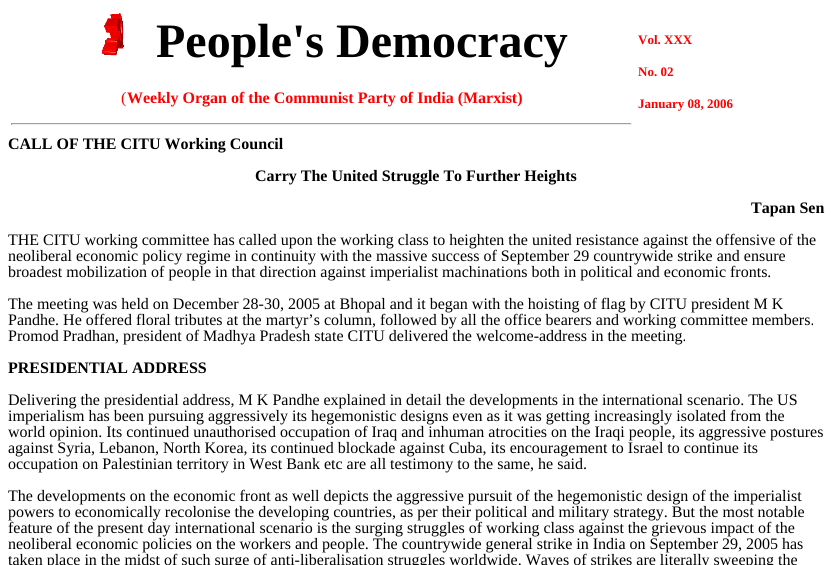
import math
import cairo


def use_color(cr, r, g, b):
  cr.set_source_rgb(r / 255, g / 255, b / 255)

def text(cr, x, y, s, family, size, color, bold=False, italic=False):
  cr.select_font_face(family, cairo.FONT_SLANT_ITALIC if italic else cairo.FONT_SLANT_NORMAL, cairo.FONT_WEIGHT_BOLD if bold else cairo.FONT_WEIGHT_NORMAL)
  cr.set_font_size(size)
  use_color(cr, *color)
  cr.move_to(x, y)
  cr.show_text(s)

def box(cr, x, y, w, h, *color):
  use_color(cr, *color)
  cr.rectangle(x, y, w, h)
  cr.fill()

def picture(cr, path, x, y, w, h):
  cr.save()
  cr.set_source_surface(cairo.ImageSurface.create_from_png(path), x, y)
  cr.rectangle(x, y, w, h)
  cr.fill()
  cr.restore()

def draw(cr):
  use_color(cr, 255, 255, 255)
  cr.paint()
  picture(cr, "img_01.png", 102, 13, 22, 43)
  box(cr, 11, 123, 621, 1, 159, 159, 159)
  box(cr, 631, 123, 1, 2, 238, 238, 238)
  box(cr, 11, 124, 621, 1, 238, 238, 238)
  box(cr, 11, 123, 1, 2, 159, 159, 159)
  text(cr, 156, 57, "People's Democracy", "Liberation Serif", 48, (0, 0, 0), bold=True)
  text(cr, 121, 103, "(", "Liberation Serif", 16, (255, 0, 0))
  text(cr, 127, 103, "Weekly Organ of the Communist Party of India (Marxist)", "Liberation Serif", 16, (255, 0, 0), bold=True)
  text(cr, 638, 44, "Vol. XXX", "Liberation Serif", 13, (255, 0, 0), bold=True)
  text(cr, 638, 76, "No. 02", "Liberation Serif", 13, (255, 0, 0), bold=True)
  text(cr, 638, 108, "January 08, 2006", "Liberation Serif", 13, (255, 0, 0), bold=True)
  text(cr, 8, 149, "CALL OF THE CITU Working Council", "Liberation Serif", 16, (0, 0, 0), bold=True)
  text(cr, 255, 181, "Carry The United Struggle To Further Heights", "Liberation Serif", 16, (0, 0, 0), bold=True)
  text(cr, 751, 213, "Tapan Sen", "Liberation Serif", 16, (0, 0, 0), bold=True)
  text(cr, 8, 245, "THE CITU working committee has called upon the working class to heighten the united resistance against the offensive of the", "Liberation Serif", 16, (0, 0, 0))
  text(cr, 8, 261, "neoliberal economic policy regime in continuity with the massive success of September 29 countrywide strike and ensure", "Liberation Serif", 16, (0, 0, 0))
  text(cr, 8, 277, "broadest mobilization of people in that direction against imperialist machinations both in political and economic fronts.", "Liberation Serif", 16, (0, 0, 0))
  text(cr, 8, 309, "The meeting was held on December 28-30, 2005 at Bhopal and it began with the hoisting of flag by CITU president M K", "Liberation Serif", 16, (0, 0, 0))
  text(cr, 8, 325, "Pandhe. He offered floral tributes at the martyr’s column, followed by all the office bearers and working committee members.", "Liberation Serif", 16, (0, 0, 0))
  text(cr, 8, 341, "Promod Pradhan, president of Madhya Pradesh state CITU delivered the welcome-address in the meeting.", "Liberation Serif", 16, (0, 0, 0))
  text(cr, 8, 373, "PRESIDENTIAL ADDRESS", "Liberation Serif", 16, (0, 0, 0), bold=True)
  text(cr, 8, 405, "Delivering the presidential address, M K Pandhe explained in detail the developments in the international scenario. The US", "Liberation Serif", 16, (0, 0, 0))
  text(cr, 8, 421, "imperialism has been pursuing aggressively its hegemonistic designs even as it was getting increasingly isolated from the", "Liberation Serif", 16, (0, 0, 0))
  text(cr, 8, 437, "world opinion. Its continued unauthorised occupation of Iraq and inhuman atrocities on the Iraqi people, its aggressive postures", "Liberation Serif", 16, (0, 0, 0))
  text(cr, 8, 453, "against Syria, Lebanon, North Korea, its continued blockade against Cuba, its encouragement to Israel to continue its", "Liberation Serif", 16, (0, 0, 0))
  text(cr, 8, 469, "occupation on Palestinian territory in West Bank etc are all testimony to the same, he said.", "Liberation Serif", 16, (0, 0, 0))
  text(cr, 8, 501, "The developments on the economic front as well depicts the aggressive pursuit of the hegemonistic design of the imperialist", "Liberation Serif", 16, (0, 0, 0))
  text(cr, 8, 517, "powers to economically recolonise the developing countries, as per their political and military strategy. But the most notable", "Liberation Serif", 16, (0, 0, 0))
  text(cr, 8, 533, "feature of the present day international scenario is the surging struggles of working class against the grievous impact of the", "Liberation Serif", 16, (0, 0, 0))
  text(cr, 8, 549, "neoliberal economic policies on the workers and people. The countrywide general strike in India on September 29, 2005 has", "Liberation Serif", 16, (0, 0, 0))
  text(cr, 8, 565, "taken place in the midst of such surge of anti-liberalisation struggles worldwide. Waves of strikes are literally sweeping the", "Liberation Serif", 16, (0, 0, 0))


surface = cairo.ImageSurface(cairo.FORMAT_RGB24, 832, 565)
cr = cairo.Context(surface)
options = cairo.FontOptions()
options.set_hint_metrics(cairo.HINT_METRICS_OFF)
options.set_hint_style(cairo.HINT_STYLE_NONE)
cr.set_font_options(options)
cr.set_miter_limit(4)
draw(cr)
surface.write_to_png("out.png")
